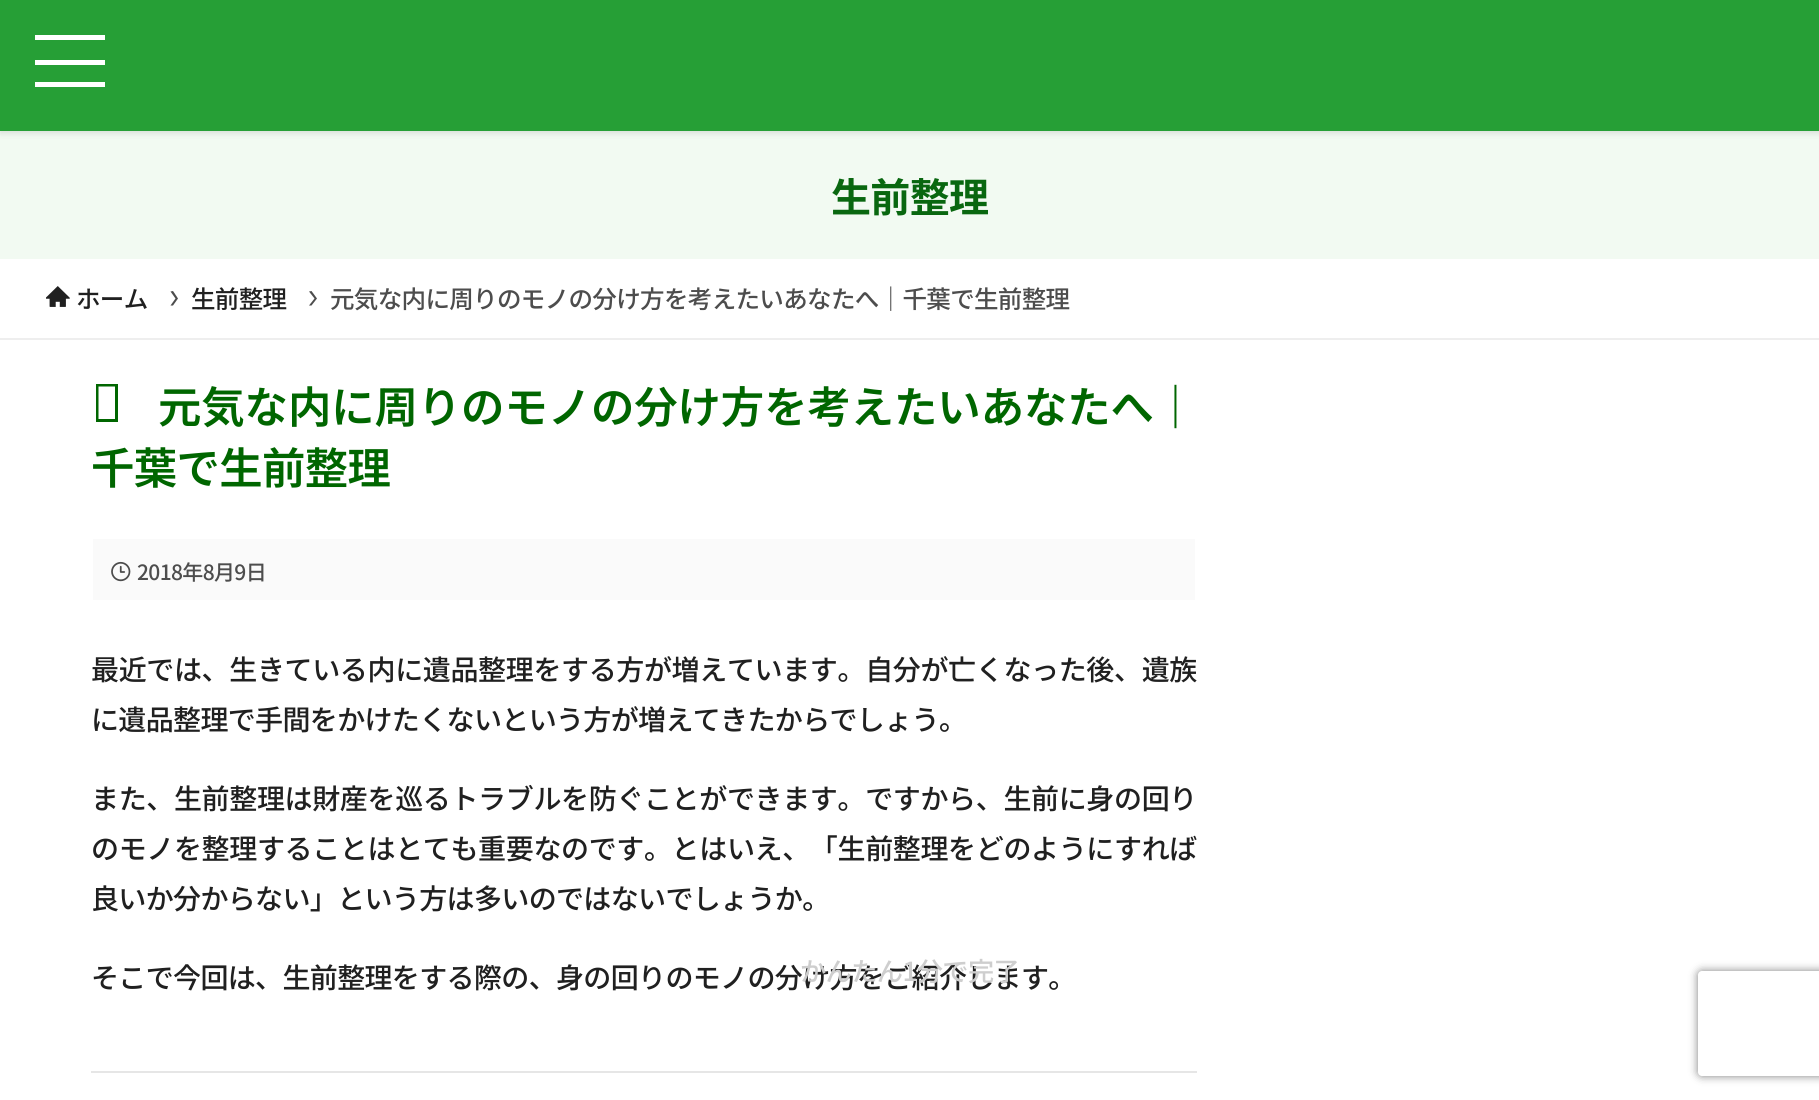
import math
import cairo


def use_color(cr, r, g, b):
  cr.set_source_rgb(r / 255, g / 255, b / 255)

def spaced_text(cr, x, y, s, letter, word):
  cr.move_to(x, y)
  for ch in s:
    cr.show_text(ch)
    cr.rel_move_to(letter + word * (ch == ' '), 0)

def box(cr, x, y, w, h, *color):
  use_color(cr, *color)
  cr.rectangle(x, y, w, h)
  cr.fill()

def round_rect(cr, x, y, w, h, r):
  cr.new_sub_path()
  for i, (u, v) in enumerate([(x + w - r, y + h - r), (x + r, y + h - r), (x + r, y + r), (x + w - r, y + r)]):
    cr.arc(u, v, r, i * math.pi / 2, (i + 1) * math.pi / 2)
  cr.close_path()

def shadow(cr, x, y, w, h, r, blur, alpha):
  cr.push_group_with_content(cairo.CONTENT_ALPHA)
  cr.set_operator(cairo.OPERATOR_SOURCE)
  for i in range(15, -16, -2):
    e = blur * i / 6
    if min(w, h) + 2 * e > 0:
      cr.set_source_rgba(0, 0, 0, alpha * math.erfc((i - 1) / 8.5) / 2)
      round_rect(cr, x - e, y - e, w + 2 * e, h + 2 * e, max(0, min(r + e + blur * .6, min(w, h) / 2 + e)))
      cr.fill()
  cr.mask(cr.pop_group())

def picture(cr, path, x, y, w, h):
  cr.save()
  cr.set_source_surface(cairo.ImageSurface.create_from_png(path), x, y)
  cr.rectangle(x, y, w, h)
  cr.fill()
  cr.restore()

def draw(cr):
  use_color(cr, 255, 255, 255)
  cr.paint()
  box(cr, 0, 131, 1819, 128, 242, 250, 242)
  use_color(cr, 0, 0, 0)
  shadow(cr, 0, 2, 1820, 131, 0, 3.5, 0.12)
  box(cr, 0, 0, 1819, 131, 38, 159, 54)
  box(cr, 35, 35, 70, 5, 255, 255, 255)
  box(cr, 35, 60, 70, 5, 255, 255, 255)
  box(cr, 35, 82, 70, 5, 255, 255, 255)
  box(cr, 0, 338, 1819, 2, 238, 238, 238)
  picture(cr, "img_01.png", 46, 286, 24, 21)
  use_color(cr, 77, 77, 77)
  cr.new_path()
  cr.move_to(173, 291)
  cr.line_to(170.5, 291.5)
  cr.line_to(175.5, 298.5)
  cr.line_to(170.5, 305.5)
  cr.line_to(173, 305.5)
  cr.line_to(178, 298.5)
  cr.close_path()
  cr.fill()
  cr.new_path()
  cr.move_to(311.5, 291)
  cr.line_to(309, 291.5)
  cr.line_to(314.5, 298.5)
  cr.line_to(309, 305.5)
  cr.line_to(311.5, 305.5)
  cr.line_to(317, 298.5)
  cr.close_path()
  cr.fill()
  use_color(cr, 0, 102, 0)
  cr.new_path()
  cr.move_to(96, 422)
  cr.line_to(96, 384)
  cr.line_to(118, 384)
  cr.line_to(118, 422)
  cr.close_path()
  cr.move_to(98.5, 419)
  cr.line_to(115, 419)
  cr.line_to(115, 386.5)
  cr.line_to(98.5, 386.5)
  cr.close_path()
  cr.fill()
  box(cr, 93, 539, 1102, 61, 250, 250, 250)
  picture(cr, "img_02.png", 111, 561, 20, 21)
  box(cr, 91, 1071, 1106, 2, 230, 230, 230)
  use_color(cr, 128, 128, 128)
  shadow(cr, 1698, 971, 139, 105, 4, 4.5, 1)
  use_color(cr, 255, 255, 255)
  round_rect(cr, 1698, 971, 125, 105, 4)
  cr.fill()
  cr.select_font_face("Noto Sans JP", cairo.FONT_SLANT_NORMAL, cairo.FONT_WEIGHT_BOLD)
  cr.set_font_size(40)
  use_color(cr, 9, 103, 16)
  spaced_text(cr, 831, 212, "生前整理", -0.65, 0)
  cr.select_font_face("Noto Sans JP Medium")
  cr.set_font_size(24.5)
  use_color(cr, 32, 32, 32)
  spaced_text(cr, 76, 308, "ホーム", -0.65, 0)
  spaced_text(cr, 191, 308, "生前整理", -0.65, 0)
  use_color(cr, 77, 77, 77)
  spaced_text(cr, 330, 308, "元気な内に周りのモノの分け方を考えたいあなたへ｜千葉で生前整理", -0.65, 0)
  cr.select_font_face("Noto Sans JP SemiBold")
  cr.set_font_size(43.4)
  use_color(cr, 0, 102, 0)
  spaced_text(cr, 158, 423, "元気な内に周りのモノの分け方を考えたいあなたへ｜", -0.1, 0)
  spaced_text(cr, 91, 484, "千葉で生前整理", -0.65, 0)
  cr.select_font_face("Noto Sans JP Medium")
  cr.set_font_size(21)
  use_color(cr, 77, 77, 77)
  spaced_text(cr, 137, 580, "2018年8月9日", -0.65, 0)
  cr.set_font_size(28)
  use_color(cr, 32, 32, 32)
  spaced_text(cr, 91, 680, "最近では、生きている内に遺品整理をする方が増えています。自分が亡くなった後、遺族", -0.35, 0)
  spaced_text(cr, 91, 730, "に遺品整理で手間をかけたくないという方が増えてきたからでしょう。", -0.65, 0)
  spaced_text(cr, 91, 809, "また、生前整理は財産を巡るトラブルを防ぐことができます。ですから、生前に身の回り", -0.35, 0)
  spaced_text(cr, 91, 859, "のモノを整理することはとても重要なのです。とはいえ、「生前整理をどのようにすれば", -0.35, 0)
  spaced_text(cr, 91, 909, "良いか分からない」という方は多いのではないでしょうか。", -0.65, 0)
  spaced_text(cr, 91, 988, "そこで今回は、生前整理をする際の、身の回りのモノの分け方をご紹介します。", -0.65, 0)
  cr.set_font_size(26.25)
  use_color(cr, 206, 206, 206)
  spaced_text(cr, 800, 981, "かんたん1分で完了", -0.65, 0)


surface = cairo.ImageSurface(cairo.FORMAT_RGB24, 1819, 1100)
cr = cairo.Context(surface)
options = cairo.FontOptions()
options.set_hint_metrics(cairo.HINT_METRICS_OFF)
options.set_hint_style(cairo.HINT_STYLE_NONE)
cr.set_font_options(options)
cr.set_miter_limit(4)
draw(cr)
surface.write_to_png("out.png")
